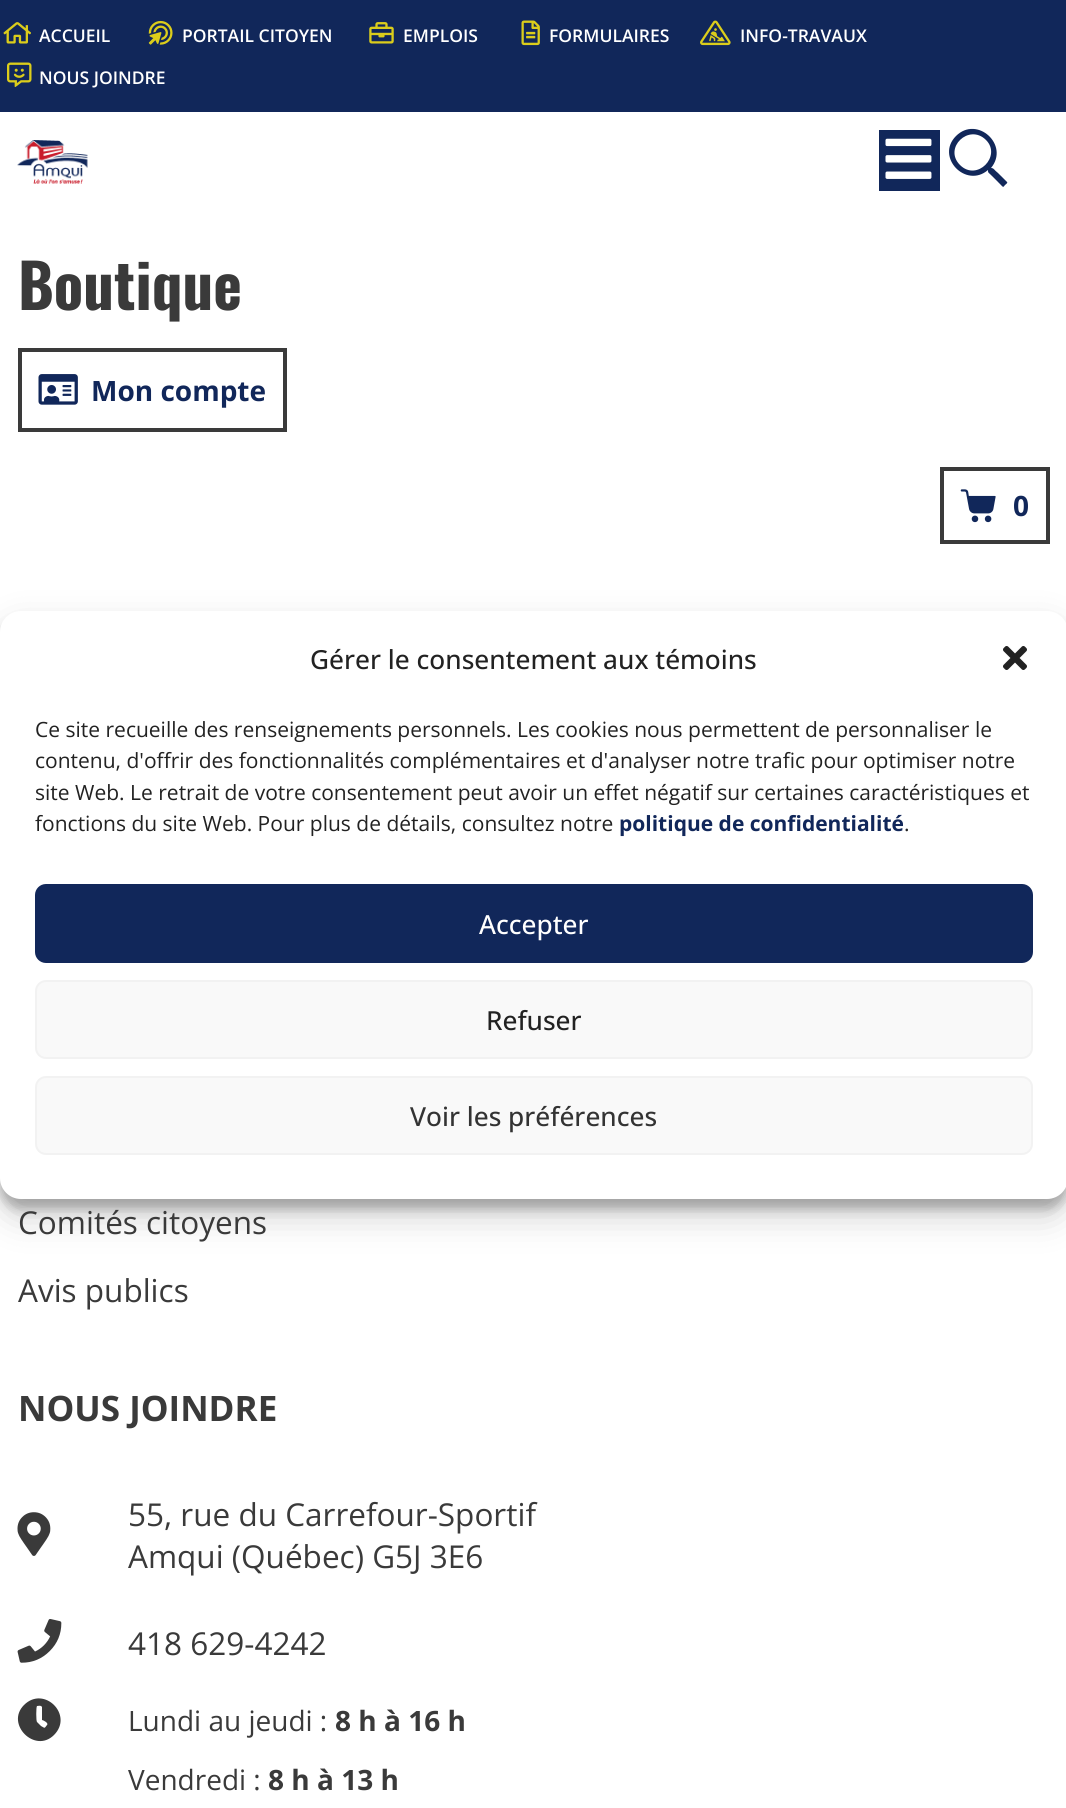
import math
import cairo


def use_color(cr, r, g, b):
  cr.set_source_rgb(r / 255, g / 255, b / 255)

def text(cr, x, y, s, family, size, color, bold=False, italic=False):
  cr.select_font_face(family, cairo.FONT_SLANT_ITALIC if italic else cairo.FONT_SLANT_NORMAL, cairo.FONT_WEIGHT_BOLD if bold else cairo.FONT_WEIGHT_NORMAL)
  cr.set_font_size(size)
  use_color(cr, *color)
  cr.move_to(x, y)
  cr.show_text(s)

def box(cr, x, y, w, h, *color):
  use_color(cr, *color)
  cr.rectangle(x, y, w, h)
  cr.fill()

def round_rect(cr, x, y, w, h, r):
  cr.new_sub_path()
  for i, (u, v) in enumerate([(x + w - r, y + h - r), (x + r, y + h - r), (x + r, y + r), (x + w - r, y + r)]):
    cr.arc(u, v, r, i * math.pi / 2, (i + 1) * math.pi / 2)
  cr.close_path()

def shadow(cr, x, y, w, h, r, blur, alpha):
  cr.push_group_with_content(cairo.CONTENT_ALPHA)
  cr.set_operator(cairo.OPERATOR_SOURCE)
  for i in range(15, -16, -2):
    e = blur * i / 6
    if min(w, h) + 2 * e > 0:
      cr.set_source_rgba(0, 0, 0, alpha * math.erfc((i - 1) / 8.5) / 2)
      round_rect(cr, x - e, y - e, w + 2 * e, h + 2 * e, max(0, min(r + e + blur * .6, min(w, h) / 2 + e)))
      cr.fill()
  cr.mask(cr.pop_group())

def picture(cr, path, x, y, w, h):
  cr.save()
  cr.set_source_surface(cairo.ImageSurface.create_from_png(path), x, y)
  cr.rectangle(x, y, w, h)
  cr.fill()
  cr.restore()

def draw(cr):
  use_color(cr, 255, 255, 255)
  cr.paint()
  box(cr, 0, 0, 1066, 112, 17, 39, 90)
  picture(cr, "img_01.png", 3, 22, 28, 22)
  picture(cr, "img_02.png", 148, 20, 25, 25)
  picture(cr, "img_03.png", 369, 22, 25, 22)
  picture(cr, "img_04.png", 521, 20, 19, 26)
  picture(cr, "img_05.png", 700, 20, 31, 26)
  picture(cr, "img_06.png", 7, 62, 25, 25)
  picture(cr, "img_07.png", 17, 140, 71, 44)
  box(cr, 879, 130, 61, 61, 17, 39, 90)
  picture(cr, "img_08.png", 885, 138, 47, 41)
  cr.new_path()
  cr.move_to(1007, 182)
  cr.curve_to(1008, 183, 1006, 184, 1005, 185)
  cr.curve_to(1003, 188, 1003, 187, 1000, 184)
  cr.line_to(991, 175)
  cr.curve_to(988, 172, 988, 173, 988, 170)
  cr.curve_to(966, 189, 935, 157, 956, 136)
  cr.curve_to(977, 115, 1010, 145, 991, 168)
  cr.curve_to(994, 168, 994, 170, 998, 173)
  cr.close_path()
  cr.move_to(960, 165)
  cr.curve_to(977, 182, 1002, 156, 986, 140)
  cr.curve_to(969, 123, 943, 148, 960, 165)
  cr.close_path()
  cr.fill()
  cr.rectangle(20, 350, 265, 80)
  use_color(cr, 58, 58, 58)
  cr.set_line_width(4)
  cr.stroke()
  picture(cr, "img_09.png", 38, 374, 40, 31)
  cr.rectangle(942, 469, 106, 73)
  cr.stroke()
  picture(cr, "img_10.png", 960, 489, 36, 34)
  picture(cr, "img_11.png", 17, 1512, 34, 44)
  picture(cr, "img_12.png", 17, 1619, 45, 44)
  cr.new_path()
  cr.move_to(24, 1705)
  cr.curve_to(44, 1685, 74, 1715, 54, 1735)
  cr.curve_to(35, 1754, 5, 1724, 24, 1705)
  cr.close_path()
  cr.move_to(47, 1725)
  cr.curve_to(49, 1723, 43, 1720, 42, 1720)
  cr.line_to(42, 1707)
  cr.curve_to(41, 1705, 38, 1706, 37, 1706)
  cr.curve_to(36, 1707, 36, 1721, 37, 1722)
  cr.line_to(41, 1726)
  cr.curve_to(45, 1728, 44, 1729, 47, 1725)
  cr.close_path()
  cr.fill()
  use_color(cr, 0, 0, 0)
  shadow(cr, 0, 621, 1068, 588, 21, 5, 0.23)
  shadow(cr, 0, 628, 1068, 588, 21, 17.5, 0.19)
  use_color(cr, 255, 255, 255)
  round_rect(cr, 0, 611, 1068, 588, 21)
  cr.fill()
  picture(cr, "img_13.png", 1003, 646, 24, 24)
  use_color(cr, 17, 39, 90)
  round_rect(cr, 36, 885, 996, 77, 10)
  cr.fill_preserve()
  cr.set_line_width(2)
  cr.stroke()
  use_color(cr, 249, 249, 249)
  round_rect(cr, 36, 981, 996, 77, 10)
  cr.fill_preserve()
  use_color(cr, 242, 242, 242)
  cr.stroke()
  use_color(cr, 249, 249, 249)
  round_rect(cr, 36, 1077, 996, 77, 10)
  cr.fill_preserve()
  use_color(cr, 242, 242, 242)
  cr.stroke()
  text(cr, 39, 42, "ACCUEIL", "Open Sans SemiBold", 17.5, (255, 255, 255))
  text(cr, 182, 42, "PORTAIL CITOYEN", "Open Sans SemiBold", 17.5, (255, 255, 255))
  text(cr, 403, 42, "EMPLOIS", "Open Sans SemiBold", 17.5, (255, 255, 255))
  text(cr, 549, 42, "FORMULAIRES", "Open Sans SemiBold", 17.5, (255, 255, 255))
  text(cr, 740, 42, "INFO-TRAVAUX", "Open Sans SemiBold", 17.5, (255, 255, 255))
  text(cr, 39, 84, "NOUS JOINDRE", "Open Sans SemiBold", 17.5, (255, 255, 255))
  text(cr, 18, 310, "Boutique", "Oswald", 61, (58, 58, 58), bold=True)
  text(cr, 91, 401, "Mon compte", "Open Sans", 28, (17, 39, 90), bold=True)
  text(cr, 1013, 516, "0", "Open Sans", 28, (17, 39, 90), bold=True)
  text(cr, 18, 1234, "Comités citoyens", "Open Sans", 31.5, (58, 58, 58))
  text(cr, 18, 1302, "Avis publics", "Open Sans", 31.5, (58, 58, 58))
  text(cr, 18, 1421, "NOUS JOINDRE", "Open Sans", 35, (58, 58, 58), bold=True)
  text(cr, 128, 1526, "55, rue du Carrefour-Sportif", "Open Sans", 31.5, (58, 58, 58))
  text(cr, 128, 1568, "Amqui (Québec) G5J 3E6", "Open Sans", 31.5, (58, 58, 58))
  text(cr, 128, 1655, "418 629-4242", "Open Sans", 31.5, (58, 58, 58))
  text(cr, 128, 1731, "Lundi au jeudi :", "Open Sans", 28, (58, 58, 58))
  text(cr, 335, 1731, "8 h à 16 h", "Open Sans", 28, (58, 58, 58), bold=True)
  text(cr, 128, 1790, "Vendredi :", "Open Sans", 28, (58, 58, 58))
  text(cr, 268, 1790, "8 h à 13 h", "Open Sans", 28, (58, 58, 58), bold=True)
  text(cr, 310, 669, "Gérer le consentement aux témoins", "Open Sans Medium", 26.25, (34, 34, 34))
  text(cr, 35, 737, "Ce site recueille des renseignements personnels. Les cookies nous permettent de personnaliser le", "Open Sans", 21, (34, 34, 34))
  text(cr, 35, 768, "contenu, d'offrir des fonctionnalités complémentaires et d'analyser notre trafic pour optimiser notre", "Open Sans", 21, (34, 34, 34))
  text(cr, 35, 800, "site Web. Le retrait de votre consentement peut avoir un effet négatif sur certaines caractéristiques et", "Open Sans", 21, (34, 34, 34))
  text(cr, 35, 831, "fonctions du site Web. Pour plus de détails, consultez notre", "Open Sans", 21, (34, 34, 34))
  text(cr, 619, 831, "politique de confidentialité", "Open Sans", 21, (17, 39, 90), bold=True)
  text(cr, 904, 831, ".", "Open Sans", 21, (34, 34, 34))
  text(cr, 479, 934, "Accepter", "Open Sans Medium", 26.25, (255, 255, 255))
  text(cr, 486, 1030, "Refuser", "Open Sans Medium", 26.25, (34, 34, 34))
  text(cr, 410, 1126, "Voir les préférences", "Open Sans Medium", 26.25, (51, 51, 51))


surface = cairo.ImageSurface(cairo.FORMAT_RGB24, 1066, 1808)
cr = cairo.Context(surface)
options = cairo.FontOptions()
options.set_hint_metrics(cairo.HINT_METRICS_OFF)
options.set_hint_style(cairo.HINT_STYLE_NONE)
cr.set_font_options(options)
cr.set_miter_limit(4)
draw(cr)
surface.write_to_png("out.png")
